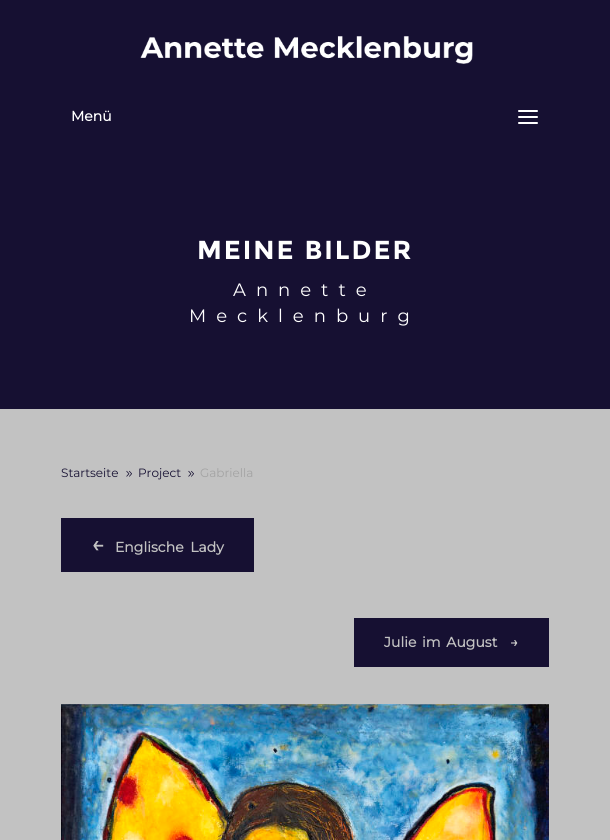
import math
import cairo


def use_color(cr, r, g, b):
  cr.set_source_rgb(r / 255, g / 255, b / 255)

def text(cr, x, y, s, family, size, color, bold=False, italic=False):
  cr.select_font_face(family, cairo.FONT_SLANT_ITALIC if italic else cairo.FONT_SLANT_NORMAL, cairo.FONT_WEIGHT_BOLD if bold else cairo.FONT_WEIGHT_NORMAL)
  cr.set_font_size(size)
  use_color(cr, *color)
  cr.move_to(x, y)
  cr.show_text(s)

def spaced_text(cr, x, y, s, letter, word):
  cr.move_to(x, y)
  for ch in s:
    cr.show_text(ch)
    cr.rel_move_to(letter + word * (ch == ' '), 0)

def box(cr, x, y, w, h, *color):
  use_color(cr, *color)
  cr.rectangle(x, y, w, h)
  cr.fill()

def picture(cr, path, x, y, w, h):
  cr.save()
  cr.set_source_surface(cairo.ImageSurface.create_from_png(path), x, y)
  cr.rectangle(x, y, w, h)
  cr.fill()
  cr.restore()

def draw(cr):
  use_color(cr, 22, 16, 50)
  cr.paint()
  picture(cr, "img_01.png", 140, 36, 333, 28)
  picture(cr, "img_02.png", 518, 110, 20, 14)
  box(cr, 0, 409, 610, 431, 194, 194, 194)
  picture(cr, "img_03.png", 126, 470, 6, 7)
  picture(cr, "img_03.png", 188, 470, 6, 7)
  box(cr, 61, 518, 193, 54, 22, 16, 50)
  box(cr, 354, 618, 195, 49, 22, 16, 50)
  picture(cr, "img_04.png", 61, 704, 488, 136)
  text(cr, 71, 121, "Menü", "Montserrat", 14, (255, 255, 255), bold=True)
  cr.select_font_face("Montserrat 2", cairo.FONT_SLANT_NORMAL, cairo.FONT_WEIGHT_BOLD)
  cr.set_font_size(26)
  spaced_text(cr, 197, 259, "MEINE BILDER", 2, 0)
  cr.select_font_face("Montserrat")
  cr.set_font_size(18)
  spaced_text(cr, 233, 296, "Annette", 10, 0)
  spaced_text(cr, 189, 322, "Mecklenburg", 10, 0)
  text(cr, 61, 477, "Startseite", "Montserrat", 12, (22, 16, 50))
  text(cr, 138, 477, "Project", "Montserrat", 12, (22, 16, 50))
  text(cr, 200, 477, "Gabriella", "Montserrat", 12, (163, 163, 163))
  text(cr, 91, 552, "←", "Montserrat", 22, (194, 194, 194), bold=True)
  cr.set_font_size(14)
  spaced_text(cr, 115, 552, "Englische Lady", 0, 3)
  spaced_text(cr, 384, 647, "Julie im August", 0, 2)
  text(cr, 510, 647, "→", "Montserrat", 14, (194, 194, 194), bold=True)


surface = cairo.ImageSurface(cairo.FORMAT_RGB24, 610, 840)
cr = cairo.Context(surface)
options = cairo.FontOptions()
options.set_hint_metrics(cairo.HINT_METRICS_OFF)
options.set_hint_style(cairo.HINT_STYLE_NONE)
cr.set_font_options(options)
cr.set_miter_limit(4)
draw(cr)
surface.write_to_png("out.png")
